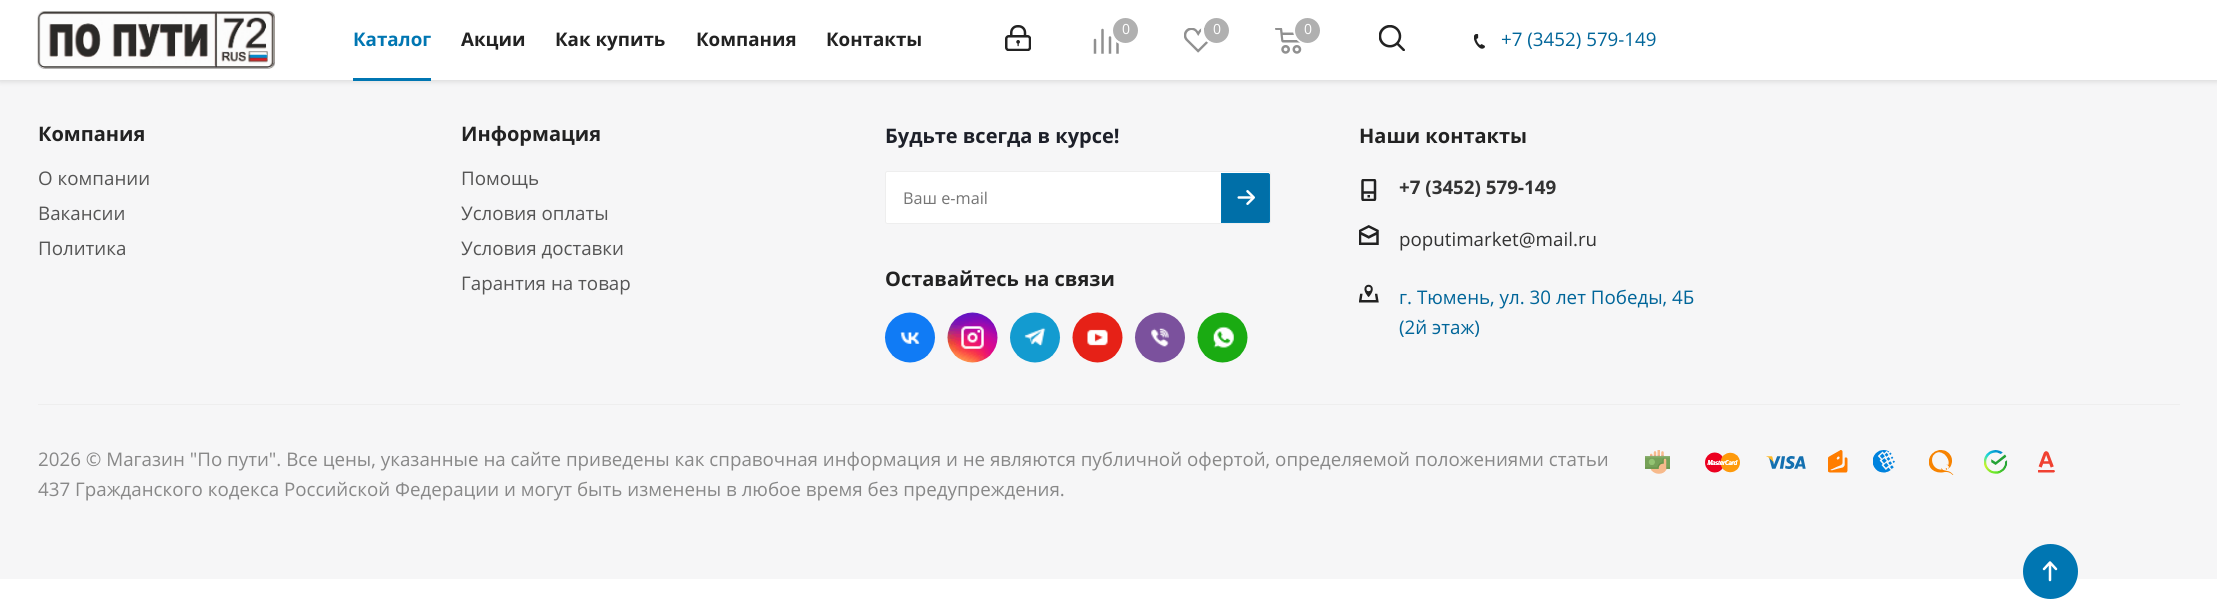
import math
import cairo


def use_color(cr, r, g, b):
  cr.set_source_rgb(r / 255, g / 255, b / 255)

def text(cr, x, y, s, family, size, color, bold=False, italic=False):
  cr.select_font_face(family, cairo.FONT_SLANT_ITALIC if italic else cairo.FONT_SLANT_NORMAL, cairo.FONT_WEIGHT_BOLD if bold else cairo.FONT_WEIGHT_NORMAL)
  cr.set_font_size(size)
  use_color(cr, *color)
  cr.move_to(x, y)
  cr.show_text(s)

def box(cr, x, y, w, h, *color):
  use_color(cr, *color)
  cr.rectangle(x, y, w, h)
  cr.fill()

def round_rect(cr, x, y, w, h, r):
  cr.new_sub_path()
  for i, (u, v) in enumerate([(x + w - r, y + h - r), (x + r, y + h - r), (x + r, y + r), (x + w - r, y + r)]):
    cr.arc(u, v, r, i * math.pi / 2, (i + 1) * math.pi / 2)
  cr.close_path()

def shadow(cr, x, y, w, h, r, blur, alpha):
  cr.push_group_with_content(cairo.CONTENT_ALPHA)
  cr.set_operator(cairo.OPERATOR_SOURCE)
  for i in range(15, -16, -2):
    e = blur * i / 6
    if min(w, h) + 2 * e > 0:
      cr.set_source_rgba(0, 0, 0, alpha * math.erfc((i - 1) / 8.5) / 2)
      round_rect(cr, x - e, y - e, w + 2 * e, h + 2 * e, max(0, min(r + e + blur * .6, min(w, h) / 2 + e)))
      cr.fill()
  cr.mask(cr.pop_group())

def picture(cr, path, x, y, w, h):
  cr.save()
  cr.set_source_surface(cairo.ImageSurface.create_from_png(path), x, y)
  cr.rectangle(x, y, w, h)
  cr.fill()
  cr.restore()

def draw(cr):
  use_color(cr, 255, 255, 255)
  cr.paint()
  box(cr, 0, 80, 2217, 499, 246, 246, 247)
  use_color(cr, 0, 0, 0)
  shadow(cr, 0, 1, 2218, 80, 0, 3, 0.14)
  box(cr, 0, 0, 2217, 80, 255, 255, 255)
  picture(cr, "img_01.png", 37, 11, 238, 58)
  box(cr, 353, 78, 78, 3, 0, 118, 178)
  picture(cr, "img_02.png", 1005, 25, 26, 26)
  picture(cr, "img_03.png", 1093, 28, 26, 26)
  cr.arc(1125, 30, 13.5, 0, 2 * math.pi)
  use_color(cr, 255, 255, 255)
  cr.set_line_width(3)
  cr.stroke()
  use_color(cr, 176, 176, 176)
  cr.arc(1125.5, 30.5, 12.5, 0, 2 * math.pi)
  cr.fill()
  picture(cr, "img_04.png", 1184, 28, 26, 25)
  cr.arc(1216, 30, 13.5, 0, 2 * math.pi)
  use_color(cr, 255, 255, 255)
  cr.stroke()
  use_color(cr, 176, 176, 176)
  cr.arc(1216.5, 30.5, 12.5, 0, 2 * math.pi)
  cr.fill()
  picture(cr, "img_05.png", 1275, 28, 27, 26)
  cr.arc(1308, 30, 13.5, 0, 2 * math.pi)
  use_color(cr, 255, 255, 255)
  cr.stroke()
  use_color(cr, 176, 176, 176)
  cr.arc(1307.5, 30.5, 12.5, 0, 2 * math.pi)
  cr.fill()
  box(cr, 1379, 25, 26, 26, 34, 34, 34)
  picture(cr, "img_06.png", 1379, 25, 26, 26)
  picture(cr, "img_07.png", 1474, 34, 11, 15)
  use_color(cr, 255, 255, 255)
  round_rect(cr, 885.5, 171.5, 385, 52, 2)
  cr.fill_preserve()
  use_color(cr, 238, 238, 238)
  cr.set_line_width(1)
  cr.stroke()
  use_color(cr, 0, 111, 168)
  cr.new_path()
  cr.move_to(1221, 173)
  cr.line_to(1267.5, 173)
  cr.curve_to(1269, 173, 1270, 174, 1270, 175.5)
  cr.line_to(1270, 220.5)
  cr.curve_to(1270, 222, 1269, 223, 1267.5, 223)
  cr.line_to(1221, 223)
  cr.close_path()
  cr.fill()
  picture(cr, "img_08.png", 1237, 190, 18, 15)
  cr.new_path()
  cr.move_to(1221.5, 173.5)
  cr.line_to(1267.5, 173.5)
  cr.curve_to(1268.5, 173.5, 1269.5, 174.5, 1269.5, 175.5)
  cr.line_to(1269.5, 220.5)
  cr.curve_to(1269.5, 221.5, 1268.5, 222.5, 1267.5, 222.5)
  cr.line_to(1221.5, 222.5)
  cr.close_path()
  use_color(cr, 0, 118, 178)
  cr.stroke()
  picture(cr, "img_09.png", 884, 312, 52, 51)
  picture(cr, "img_10.png", 947, 312, 51, 51)
  picture(cr, "img_11.png", 1010, 312, 51, 51)
  picture(cr, "img_12.png", 1072, 312, 51, 51)
  picture(cr, "img_13.png", 1134, 312, 51, 51)
  picture(cr, "img_14.png", 1197, 312, 51, 51)
  picture(cr, "img_15.png", 1361, 179, 16, 22)
  picture(cr, "img_16.png", 1359, 225, 20, 20)
  picture(cr, "img_17.png", 1359, 284, 20, 19)
  box(cr, 38, 404, 2142, 1, 238, 238, 238)
  picture(cr, "img_18.png", 1645, 450, 25, 24)
  picture(cr, "img_19.png", 1705, 452, 35, 21)
  picture(cr, "img_20.png", 1766, 456, 40, 13)
  picture(cr, "img_21.png", 1828, 450, 20, 23)
  picture(cr, "img_22.png", 1873, 450, 22, 23)
  picture(cr, "img_23.png", 1929, 450, 25, 25)
  picture(cr, "img_24.png", 1984, 450, 24, 24)
  picture(cr, "img_25.png", 2038, 451, 17, 22)
  use_color(cr, 0, 118, 178)
  cr.arc(2050.5, 571.5, 27.5, 0, 2 * math.pi)
  cr.fill()
  cr.new_path()
  cr.move_to(2050, 562.5)
  cr.line_to(2050, 580)
  cr.move_to(2044, 569)
  cr.line_to(2050, 562.5)
  cr.line_to(2056, 569)
  use_color(cr, 255, 255, 255)
  cr.set_line_width(2.5)
  cr.set_line_cap(cairo.LINE_CAP_ROUND)
  cr.set_line_join(cairo.LINE_JOIN_ROUND)
  cr.stroke()
  text(cr, 353, 46, "Каталог", "Open Sans", 18.75, (0, 118, 178), bold=True)
  text(cr, 461, 46, "Акции", "Open Sans", 18.75, (34, 34, 34), bold=True)
  text(cr, 555, 46, "Как купить", "Open Sans", 18.75, (34, 34, 34), bold=True)
  text(cr, 696, 46, "Компания", "Open Sans", 18.75, (34, 34, 34), bold=True)
  text(cr, 826, 46, "Контакты", "Open Sans", 18.75, (34, 34, 34), bold=True)
  text(cr, 1122, 34, "0", "Open Sans", 14, (255, 255, 255))
  text(cr, 1213, 34, "0", "Open Sans", 14, (255, 255, 255))
  text(cr, 1304, 34, "0", "Open Sans", 14, (255, 255, 255))
  text(cr, 1501, 46, "+7 (3452) 579-149", "Open Sans", 18.75, (0, 101, 153))
  text(cr, 38, 141, "Компания", "Open Sans", 20, (34, 34, 34), bold=True)
  text(cr, 38, 185, "О компании", "Open Sans", 18.75, (85, 85, 85))
  text(cr, 38, 220, "Вакансии", "Open Sans", 18.75, (85, 85, 85))
  text(cr, 38, 255, "Политика", "Open Sans", 18.75, (85, 85, 85))
  text(cr, 461, 141, "Информация", "Open Sans", 20, (34, 34, 34), bold=True)
  text(cr, 461, 185, "Помощь", "Open Sans", 18.75, (85, 85, 85))
  text(cr, 461, 220, "Условия оплаты", "Open Sans", 18.75, (85, 85, 85))
  text(cr, 461, 255, "Условия доставки", "Open Sans", 18.75, (85, 85, 85))
  text(cr, 461, 290, "Гарантия на товар", "Open Sans", 18.75, (85, 85, 85))
  text(cr, 885, 143, "Будьте всегда в курсе!", "Open Sans", 20, (29, 32, 41), bold=True)
  text(cr, 903, 204, "Ваш e-mail", "Open Sans", 16.25, (117, 117, 117))
  text(cr, 885, 286, "Оставайтесь на связи", "Open Sans", 20, (34, 34, 34), bold=True)
  text(cr, 1359, 143, "Наши контакты", "Open Sans", 20, (34, 34, 34), bold=True)
  text(cr, 1399, 194, "+7 (3452) 579-149", "Open Sans", 18.75, (51, 51, 51), bold=True)
  text(cr, 1399, 246, "poputimarket@mail.ru", "Open Sans", 18.75, (51, 51, 51))
  text(cr, 1399, 304, "г. Тюмень, ул. 30 лет Победы, 4Б", "Open Sans", 18.75, (0, 101, 153))
  text(cr, 1399, 334, "(2й этаж)", "Open Sans", 18.75, (0, 101, 153))
  text(cr, 38, 466, "2026 © Магазин \"По пути\". Все цены, указанные на сайте приведены как справочная информация и не являются публичной офертой, определяемой положениями статьи", "Open Sans", 18.75, (136, 136, 136))
  text(cr, 38, 496, "437 Гражданского кодекса Российской Федерации и могут быть изменены в любое время без предупреждения.", "Open Sans", 18.75, (136, 136, 136))


surface = cairo.ImageSurface(cairo.FORMAT_RGB24, 2217, 611)
cr = cairo.Context(surface)
options = cairo.FontOptions()
options.set_hint_metrics(cairo.HINT_METRICS_OFF)
options.set_hint_style(cairo.HINT_STYLE_NONE)
cr.set_font_options(options)
cr.set_miter_limit(4)
draw(cr)
surface.write_to_png("out.png")
